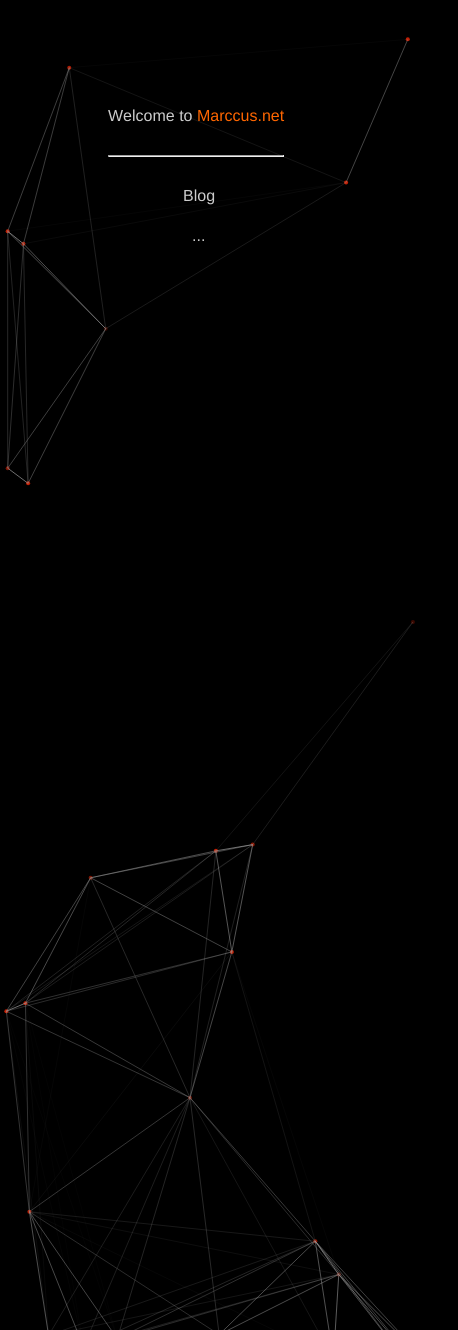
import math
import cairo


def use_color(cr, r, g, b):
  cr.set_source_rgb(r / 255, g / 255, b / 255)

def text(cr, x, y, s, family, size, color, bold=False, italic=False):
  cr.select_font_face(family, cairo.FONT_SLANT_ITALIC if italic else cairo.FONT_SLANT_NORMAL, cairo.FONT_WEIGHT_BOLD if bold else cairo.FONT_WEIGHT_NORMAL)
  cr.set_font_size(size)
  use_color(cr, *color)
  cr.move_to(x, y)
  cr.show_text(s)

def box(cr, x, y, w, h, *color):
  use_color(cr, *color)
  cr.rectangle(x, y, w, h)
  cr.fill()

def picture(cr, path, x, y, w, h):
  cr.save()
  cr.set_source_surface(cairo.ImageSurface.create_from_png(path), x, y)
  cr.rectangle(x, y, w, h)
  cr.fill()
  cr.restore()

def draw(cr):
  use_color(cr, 0, 0, 0)
  cr.paint()
  picture(cr, "img_01.png", 4, 37, 411, 1293)
  box(cr, 108, 155, 176, 1, 159, 159, 159)
  box(cr, 283, 155, 1, 2, 238, 238, 238)
  box(cr, 108, 156, 176, 1, 238, 238, 238)
  box(cr, 108, 155, 1, 2, 159, 159, 159)
  text(cr, 108, 121, "Welcome to", "Liberation Sans", 16, (204, 204, 204))
  text(cr, 197, 121, "Marccus.net", "Liberation Sans", 16, (255, 102, 0))
  text(cr, 183, 201, "Blog", "Liberation Sans", 16, (204, 204, 204))
  text(cr, 192, 241, "...", "Liberation Sans", 16, (204, 204, 204))


surface = cairo.ImageSurface(cairo.FORMAT_RGB24, 458, 1330)
cr = cairo.Context(surface)
options = cairo.FontOptions()
options.set_hint_metrics(cairo.HINT_METRICS_OFF)
options.set_hint_style(cairo.HINT_STYLE_NONE)
cr.set_font_options(options)
cr.set_miter_limit(4)
draw(cr)
surface.write_to_png("out.png")
